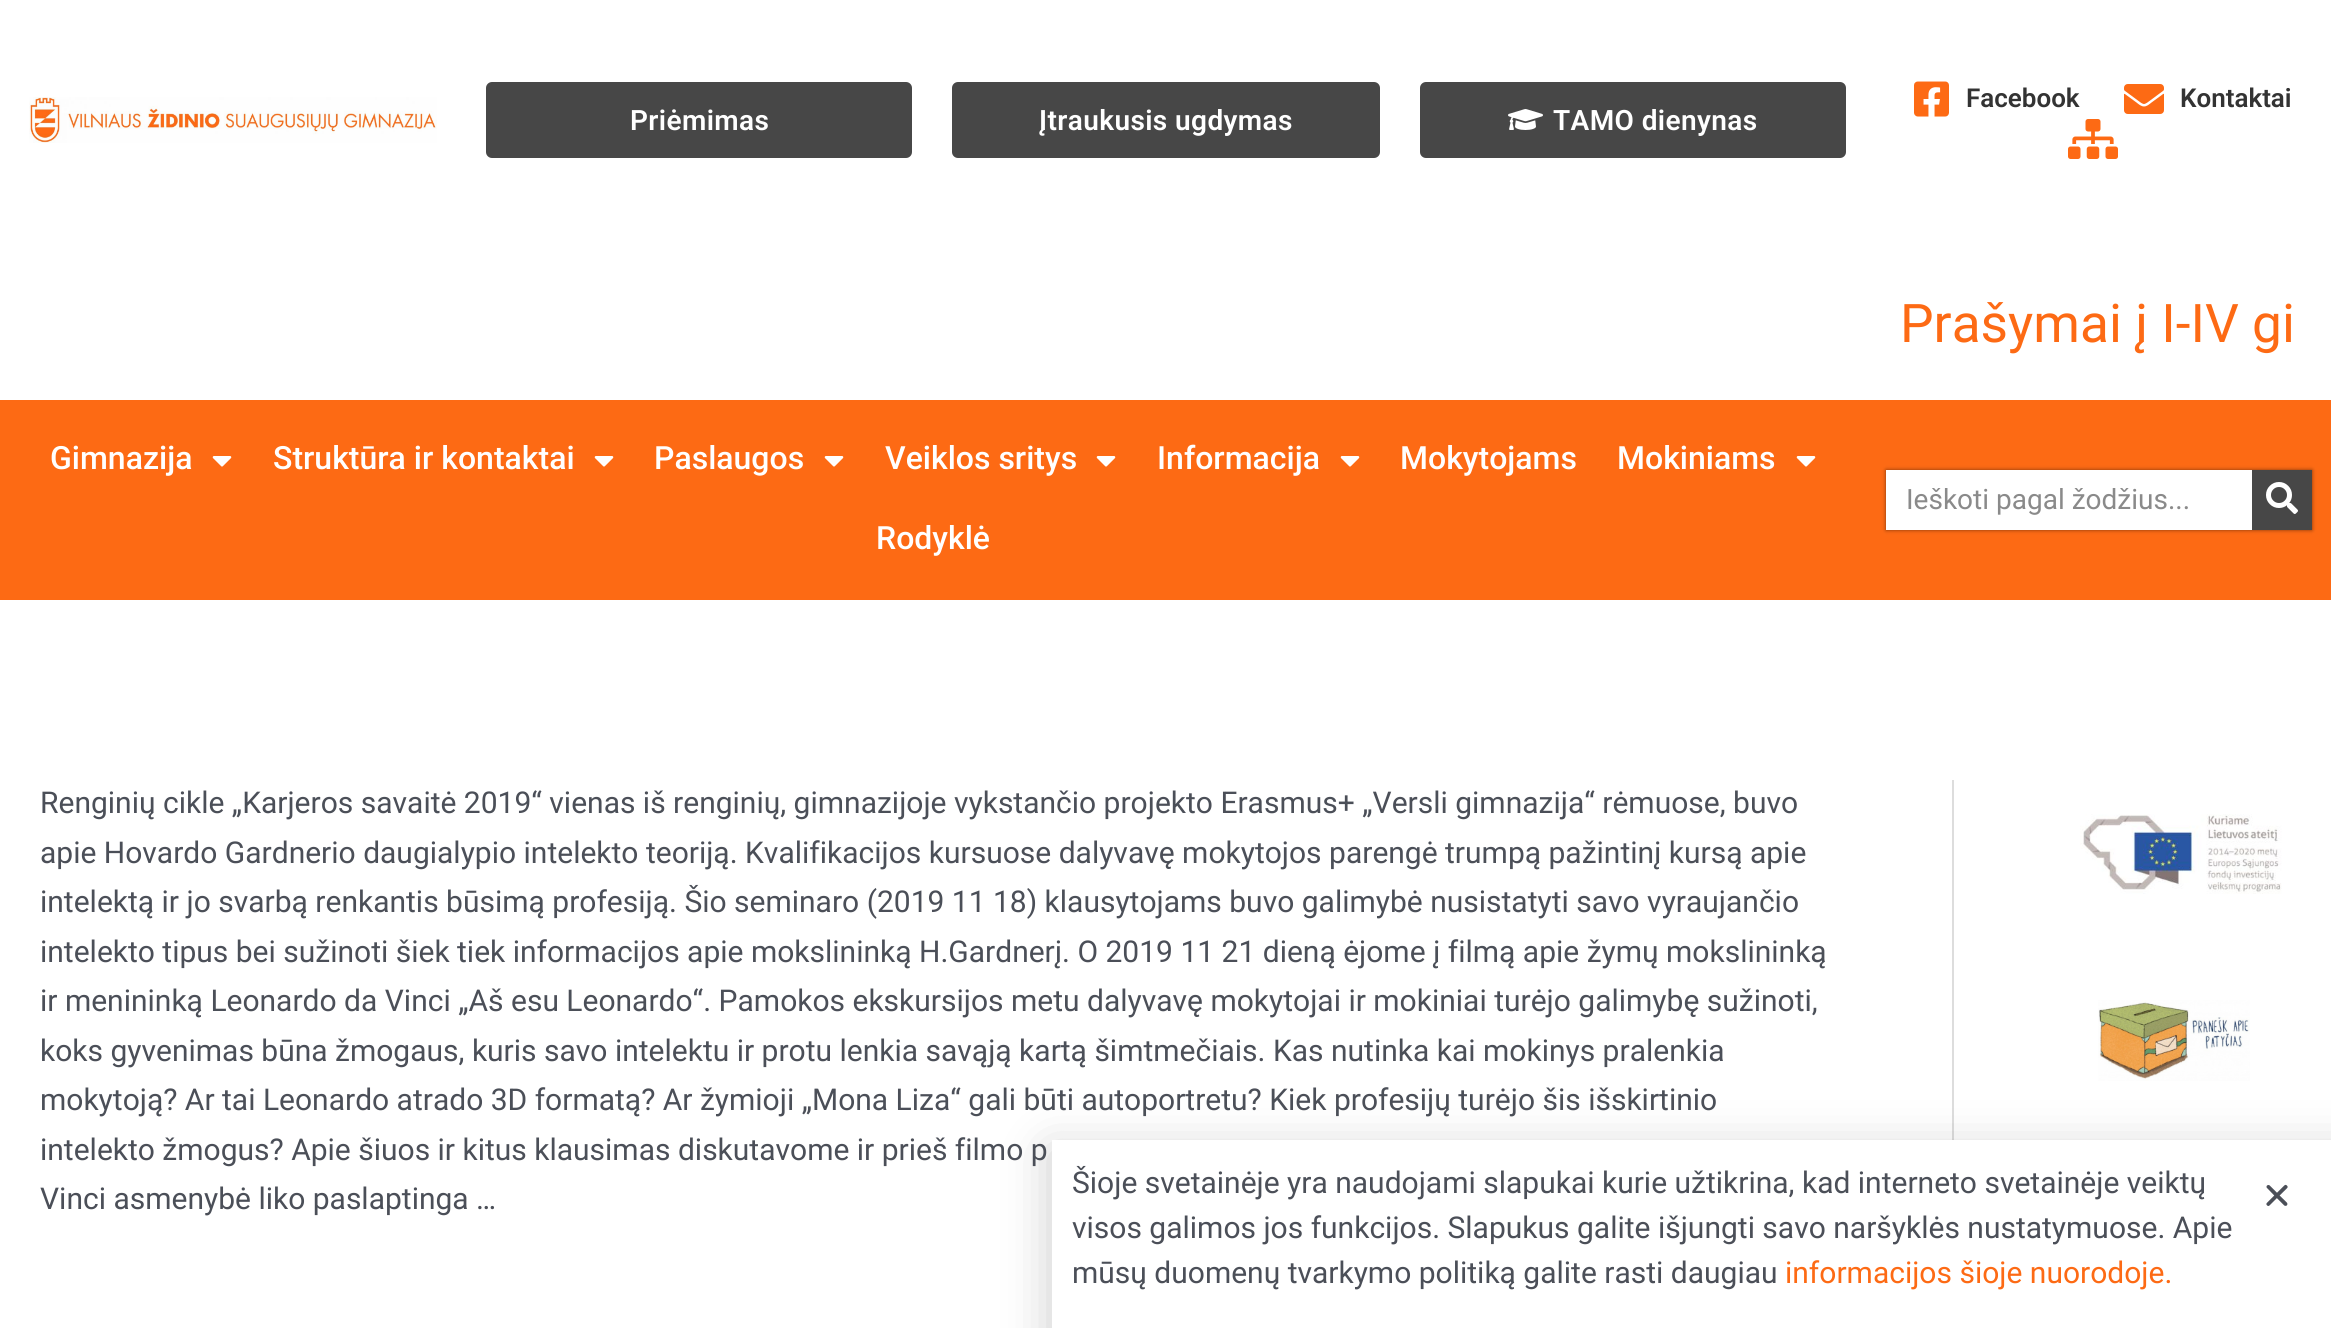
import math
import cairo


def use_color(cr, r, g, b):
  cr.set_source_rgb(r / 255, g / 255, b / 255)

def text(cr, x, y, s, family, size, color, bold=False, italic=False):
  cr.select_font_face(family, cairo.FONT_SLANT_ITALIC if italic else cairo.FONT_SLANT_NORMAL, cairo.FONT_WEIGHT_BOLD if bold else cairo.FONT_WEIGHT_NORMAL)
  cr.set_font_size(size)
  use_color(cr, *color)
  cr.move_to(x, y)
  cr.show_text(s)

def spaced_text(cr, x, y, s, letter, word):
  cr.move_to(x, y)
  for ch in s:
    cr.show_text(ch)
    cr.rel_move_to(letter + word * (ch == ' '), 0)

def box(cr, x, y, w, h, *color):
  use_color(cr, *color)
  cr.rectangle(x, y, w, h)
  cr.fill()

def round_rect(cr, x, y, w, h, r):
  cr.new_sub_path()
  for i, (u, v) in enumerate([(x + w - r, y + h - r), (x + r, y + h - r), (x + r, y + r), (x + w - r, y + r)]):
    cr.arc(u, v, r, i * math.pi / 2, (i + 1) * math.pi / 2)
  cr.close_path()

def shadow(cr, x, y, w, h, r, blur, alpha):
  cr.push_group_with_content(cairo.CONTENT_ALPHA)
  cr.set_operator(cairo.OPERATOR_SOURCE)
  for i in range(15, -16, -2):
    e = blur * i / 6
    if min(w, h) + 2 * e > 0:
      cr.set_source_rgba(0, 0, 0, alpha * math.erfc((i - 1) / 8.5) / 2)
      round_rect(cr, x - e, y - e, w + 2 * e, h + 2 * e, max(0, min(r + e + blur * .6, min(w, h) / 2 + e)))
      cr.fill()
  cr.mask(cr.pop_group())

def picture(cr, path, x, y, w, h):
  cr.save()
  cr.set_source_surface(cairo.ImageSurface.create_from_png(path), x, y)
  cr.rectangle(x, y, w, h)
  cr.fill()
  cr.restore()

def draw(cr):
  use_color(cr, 255, 255, 255)
  cr.paint()
  picture(cr, "img_01.png", 29, 97, 408, 46)
  use_color(cr, 71, 71, 71)
  round_rect(cr, 486, 82, 426, 76, 6)
  cr.fill()
  round_rect(cr, 952, 82, 428, 76, 6)
  cr.fill()
  round_rect(cr, 1420, 82, 426, 76, 6)
  cr.fill()
  picture(cr, "img_02.png", 1508, 109, 35, 21)
  picture(cr, "img_03.png", 1914, 81, 35, 36)
  picture(cr, "img_04.png", 2124, 84, 40, 30)
  picture(cr, "img_05.png", 2068, 119, 50, 40)
  box(cr, 0, 400, 2331, 200, 253, 106, 20)
  picture(cr, "img_06.png", 212, 456, 20, 11)
  picture(cr, "img_06.png", 594, 456, 20, 11)
  picture(cr, "img_06.png", 824, 456, 20, 11)
  picture(cr, "img_06.png", 1096, 456, 20, 11)
  picture(cr, "img_06.png", 1340, 456, 20, 11)
  picture(cr, "img_06.png", 1796, 456, 20, 11)
  use_color(cr, 0, 0, 0)
  shadow(cr, 1886, 470, 426, 60, 0, 2, 0.5)
  box(cr, 1886, 470, 366, 60, 255, 255, 255)
  box(cr, 2252, 470, 60, 60, 71, 71, 71)
  picture(cr, "img_07.png", 2266, 482, 32, 32)
  box(cr, 1952, 780, 2, 360, 221, 221, 221)
  picture(cr, "img_08.png", 2080, 814, 202, 80)
  picture(cr, "img_09.png", 2098, 1000, 152, 81)
  use_color(cr, 0, 0, 0)
  shadow(cr, 1050, 1150, 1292, 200, 0, 23, 0.2)
  box(cr, 1052, 1140, 1279, 188, 255, 255, 255)
  picture(cr, "img_10.png", 2266, 1184, 22, 22)
  cr.select_font_face("Roboto SemiBold")
  cr.set_font_size(28)
  spaced_text(cr, 630, 130, "Priėmimas", 0.4, 0)
  spaced_text(cr, 1039, 130, "Įtraukusis ugdymas", 0.4, 0)
  spaced_text(cr, 1553, 130, "TAMO dienynas", 0.4, 0)
  text(cr, 1966, 107, "Facebook", "Roboto SemiBold", 26, (51, 51, 51))
  text(cr, 2180, 107, "Kontaktai", "Roboto SemiBold", 26, (51, 51, 51))
  text(cr, 1900, 342, "Prašymai į I-IV gi", "Roboto", 53.25, (253, 106, 20))
  text(cr, 50, 469, "Gimnazija", "Roboto Medium", 32, (255, 255, 255))
  text(cr, 273, 469, "Struktūra ir kontaktai", "Roboto Medium", 32, (255, 255, 255))
  text(cr, 654, 469, "Paslaugos", "Roboto Medium", 32, (255, 255, 255))
  text(cr, 885, 469, "Veiklos sritys", "Roboto Medium", 32, (255, 255, 255))
  text(cr, 1157, 469, "Informacija", "Roboto Medium", 32, (255, 255, 255))
  text(cr, 1400, 469, "Mokytojams", "Roboto Medium", 32, (255, 255, 255))
  text(cr, 1617, 469, "Mokiniams", "Roboto Medium", 32, (255, 255, 255))
  text(cr, 876, 549, "Rodyklė", "Roboto Medium", 32, (255, 255, 255))
  text(cr, 1906, 509, "Ieškoti pagal žodžius...", "Roboto", 28, (138, 138, 138))
  text(cr, 40, 813, "Renginių cikle „Karjeros savaitė 2019“ vienas iš renginių, gimnazijoje vykstančio projekto Erasmus+ „Versli gimnazija“ rėmuose, buvo", "Roboto", 30, (75, 79, 88))
  text(cr, 40, 863, "apie Hovardo Gardnerio daugialypio intelekto teoriją. Kvalifikacijos kursuose dalyvavę mokytojos parengė trumpą pažintinį kursą apie", "Roboto", 30, (75, 79, 88))
  text(cr, 40, 912, "intelektą ir jo svarbą renkantis būsimą profesiją. Šio seminaro (2019 11 18) klausytojams buvo galimybė nusistatyti savo vyraujančio", "Roboto", 30, (75, 79, 88))
  text(cr, 40, 962, "intelekto tipus bei sužinoti šiek tiek informacijos apie mokslininką H.Gardnerį. O 2019 11 21 dieną ėjome į filmą apie žymų mokslininką", "Roboto", 30, (75, 79, 88))
  text(cr, 40, 1011, "ir menininką Leonardo da Vinci „Aš esu Leonardo“. Pamokos ekskursijos metu dalyvavę mokytojai ir mokiniai turėjo galimybę sužinoti,", "Roboto", 30, (75, 79, 88))
  text(cr, 40, 1061, "koks gyvenimas būna žmogaus, kuris savo intelektu ir protu lenkia savąją kartą šimtmečiais. Kas nutinka kai mokinys pralenkia", "Roboto", 30, (75, 79, 88))
  text(cr, 40, 1110, "mokytoją? Ar tai Leonardo atrado 3D formatą? Ar žymioji „Mona Liza“ gali būti autoportretu? Kiek profesijų turėjo šis išskirtinio", "Roboto", 30, (75, 79, 88))
  text(cr, 40, 1160, "intelekto žmogus? Apie šiuos ir kitus klausimas diskutavome ir prieš filmo p", "Roboto", 30, (75, 79, 88))
  text(cr, 40, 1209, "Vinci asmenybė liko paslaptinga …", "Roboto", 30, (75, 79, 88))
  text(cr, 1072, 1193, "Šioje svetainėje yra naudojami slapukai kurie užtikrina, kad interneto svetainėje veiktų", "Roboto", 30, (75, 79, 88))
  text(cr, 1072, 1238, "visos galimos jos funkcijos. Slapukus galite išjungti savo naršyklės nustatymuose. Apie", "Roboto", 30, (75, 79, 88))
  text(cr, 1072, 1283, "mūsų duomenų tvarkymo politiką galite rasti daugiau", "Roboto", 30, (75, 79, 88))
  text(cr, 1785, 1283, "informacijos šioje nuorodoje.", "Roboto", 30, (253, 106, 20))


surface = cairo.ImageSurface(cairo.FORMAT_RGB24, 2331, 1328)
cr = cairo.Context(surface)
options = cairo.FontOptions()
options.set_hint_metrics(cairo.HINT_METRICS_OFF)
options.set_hint_style(cairo.HINT_STYLE_NONE)
cr.set_font_options(options)
cr.set_miter_limit(4)
draw(cr)
surface.write_to_png("out.png")
